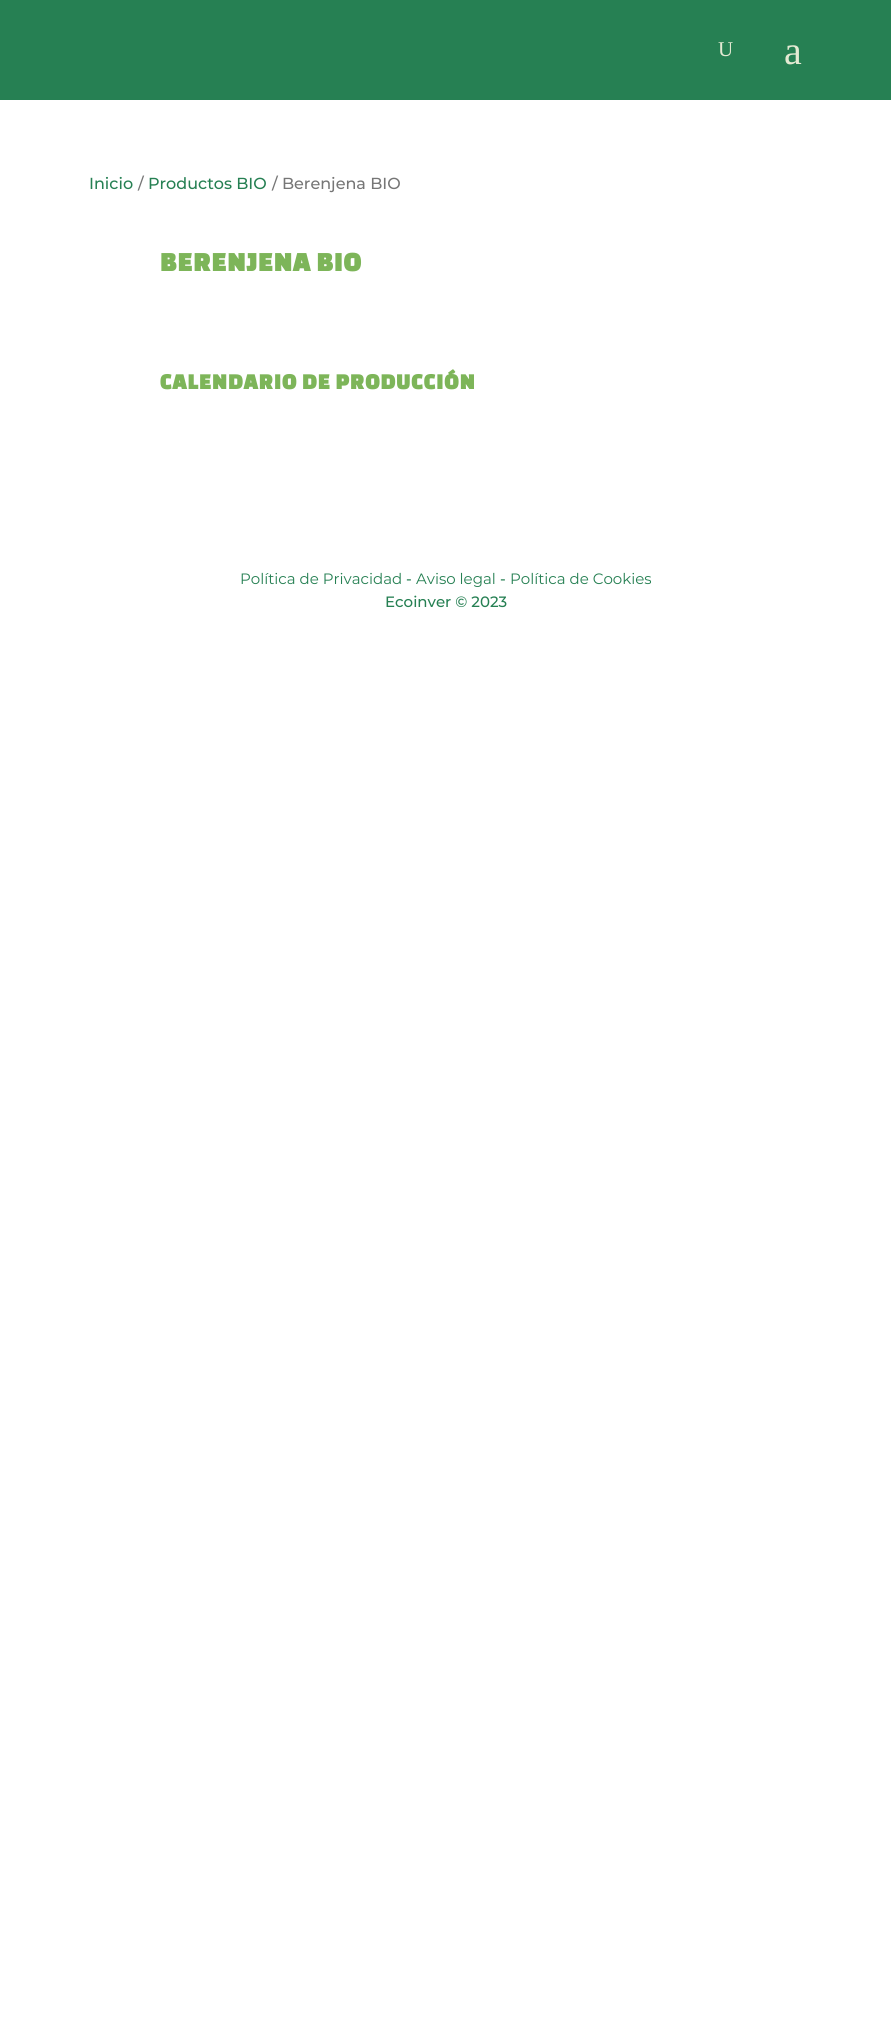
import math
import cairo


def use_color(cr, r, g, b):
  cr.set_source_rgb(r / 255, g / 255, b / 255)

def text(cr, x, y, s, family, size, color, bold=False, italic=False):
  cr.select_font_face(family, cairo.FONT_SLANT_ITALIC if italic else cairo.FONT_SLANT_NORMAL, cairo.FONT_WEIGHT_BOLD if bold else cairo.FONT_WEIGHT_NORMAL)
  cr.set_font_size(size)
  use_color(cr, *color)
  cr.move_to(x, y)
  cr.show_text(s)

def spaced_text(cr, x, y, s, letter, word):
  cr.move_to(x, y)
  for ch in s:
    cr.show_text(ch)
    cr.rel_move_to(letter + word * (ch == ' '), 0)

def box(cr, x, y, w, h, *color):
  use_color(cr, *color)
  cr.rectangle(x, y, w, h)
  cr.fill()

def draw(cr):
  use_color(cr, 255, 255, 255)
  cr.paint()
  box(cr, 0, 0, 891, 100, 38, 128, 83)
  text(cr, 718, 56, "U", "Liberation Serif", 21, (228, 234, 211))
  text(cr, 784, 64, "a", "Liberation Serif", 40, (228, 234, 211))
  text(cr, 89, 189, "Inicio", "Montserrat Medium", 16, (38, 128, 83))
  text(cr, 138, 189, "/", "Montserrat Medium", 16, (118, 118, 118))
  text(cr, 148, 189, "Productos BIO", "Montserrat Medium", 16, (38, 128, 83))
  text(cr, 272, 189, "/ Berenjena BIO", "Montserrat Medium", 16, (118, 118, 118))
  cr.select_font_face("Changa One", cairo.FONT_SLANT_NORMAL, cairo.FONT_WEIGHT_BOLD)
  cr.set_font_size(27.5)
  use_color(cr, 125, 181, 89)
  spaced_text(cr, 160, 271, "BERENJENA BIO", 1.25, 0)
  cr.set_font_size(22.5)
  spaced_text(cr, 160, 389, "CALENDARIO DE PRODUCCIÓN", 1.25, 0)
  text(cr, 240, 584, "Política de Privacidad", "Montserrat", 15, (38, 128, 83))
  text(cr, 406, 584, "-", "Montserrat Medium", 15, (38, 128, 83))
  text(cr, 416, 584, "Aviso legal", "Montserrat", 15, (38, 128, 83))
  text(cr, 500, 584, "-", "Montserrat Medium", 15, (38, 128, 83))
  text(cr, 510, 584, "Política de Cookies", "Montserrat", 15, (38, 128, 83))
  text(cr, 385, 607, "Ecoinver © 2023", "Montserrat Medium", 15, (38, 128, 83))


surface = cairo.ImageSurface(cairo.FORMAT_RGB24, 891, 2026)
cr = cairo.Context(surface)
options = cairo.FontOptions()
options.set_hint_metrics(cairo.HINT_METRICS_OFF)
options.set_hint_style(cairo.HINT_STYLE_NONE)
cr.set_font_options(options)
cr.set_miter_limit(4)
draw(cr)
surface.write_to_png("out.png")
